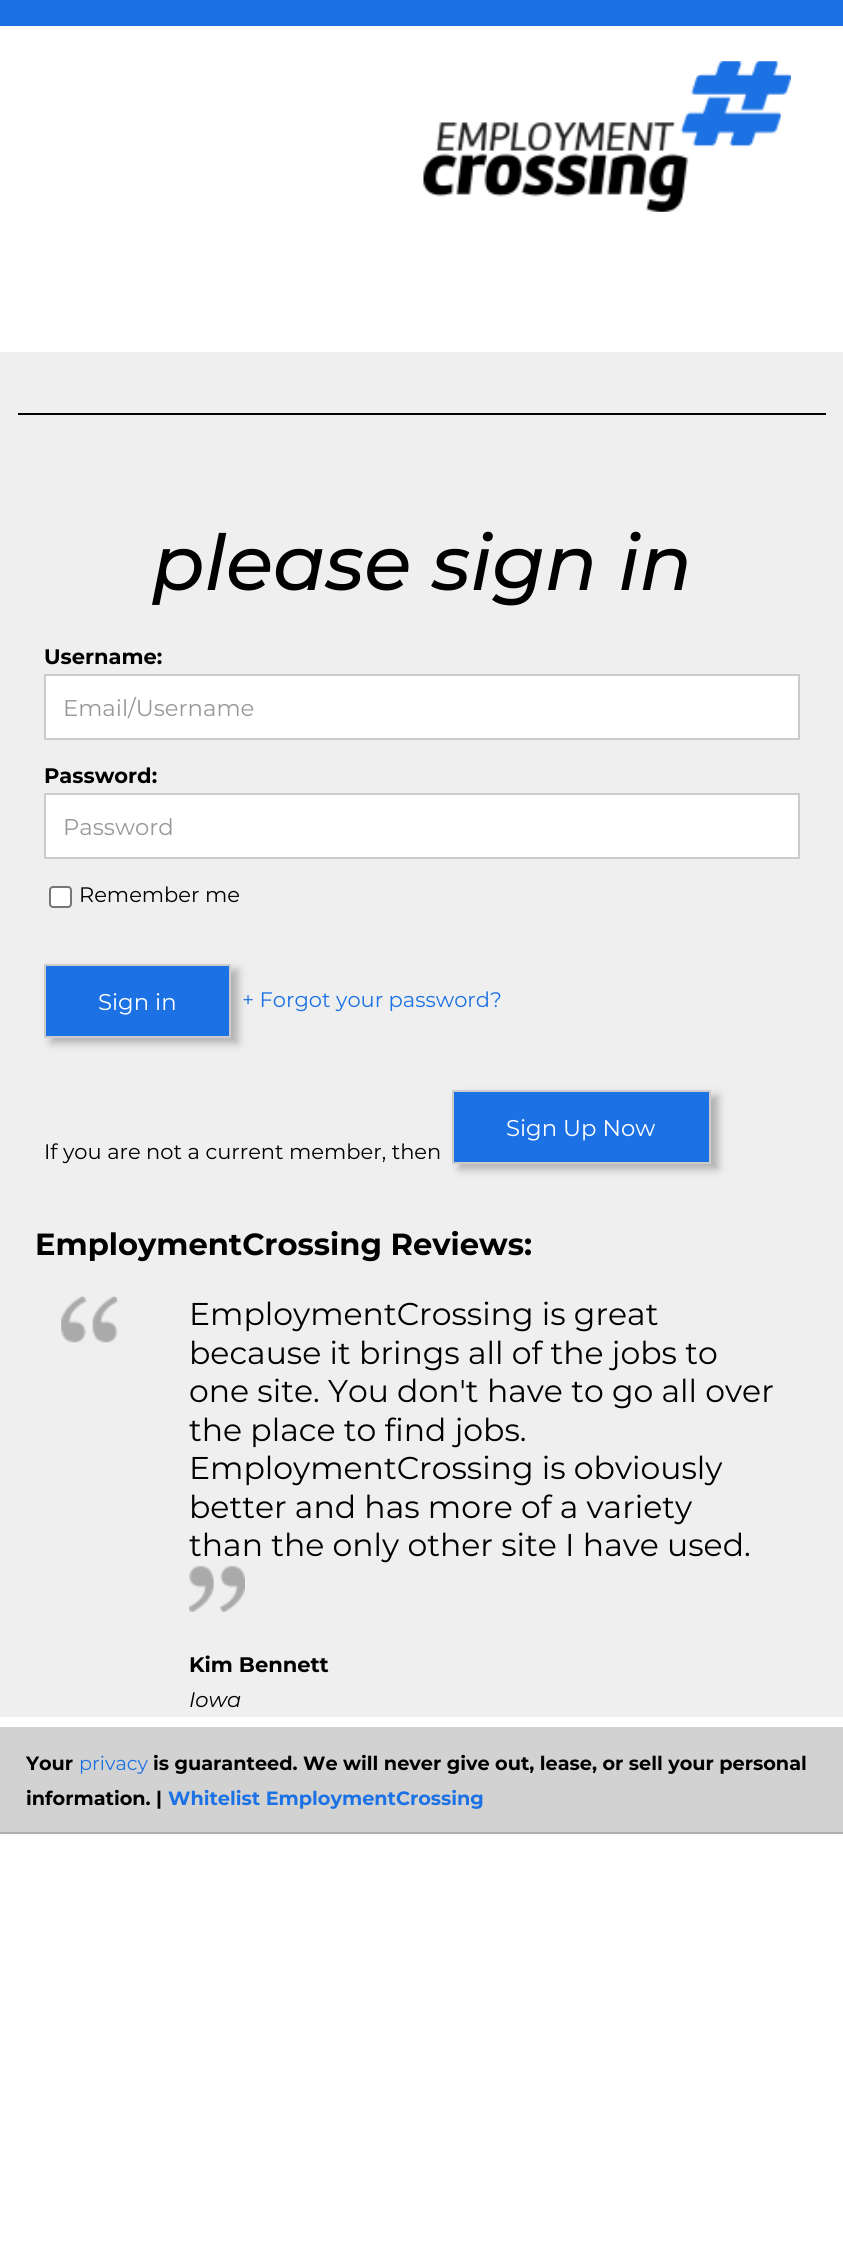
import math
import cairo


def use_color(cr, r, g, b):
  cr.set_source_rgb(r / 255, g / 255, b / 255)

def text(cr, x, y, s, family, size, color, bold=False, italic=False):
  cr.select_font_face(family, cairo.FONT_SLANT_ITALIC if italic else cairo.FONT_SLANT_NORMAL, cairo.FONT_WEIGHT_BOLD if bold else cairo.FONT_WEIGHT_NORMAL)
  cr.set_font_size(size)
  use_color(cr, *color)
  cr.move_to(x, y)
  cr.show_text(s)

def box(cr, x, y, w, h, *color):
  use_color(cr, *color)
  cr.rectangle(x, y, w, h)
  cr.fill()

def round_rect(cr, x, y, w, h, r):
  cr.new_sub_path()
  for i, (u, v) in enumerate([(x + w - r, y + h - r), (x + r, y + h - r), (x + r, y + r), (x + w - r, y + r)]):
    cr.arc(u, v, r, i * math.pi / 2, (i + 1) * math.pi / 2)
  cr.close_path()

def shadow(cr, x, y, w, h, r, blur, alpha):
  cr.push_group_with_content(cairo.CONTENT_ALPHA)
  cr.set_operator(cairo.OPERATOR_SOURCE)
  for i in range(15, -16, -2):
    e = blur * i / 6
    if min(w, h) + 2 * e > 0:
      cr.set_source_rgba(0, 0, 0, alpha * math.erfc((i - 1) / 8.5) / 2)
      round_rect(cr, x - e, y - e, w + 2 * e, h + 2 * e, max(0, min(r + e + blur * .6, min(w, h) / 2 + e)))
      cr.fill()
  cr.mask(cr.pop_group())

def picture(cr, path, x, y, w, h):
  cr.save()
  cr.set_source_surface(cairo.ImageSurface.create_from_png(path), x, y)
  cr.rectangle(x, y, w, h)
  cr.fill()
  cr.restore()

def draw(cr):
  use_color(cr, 255, 255, 255)
  cr.paint()
  box(cr, 0, 0, 843, 26, 28, 114, 228)
  picture(cr, "img_01.png", 423, 61, 368, 151)
  box(cr, 0, 352, 843, 1365, 239, 239, 239)
  box(cr, 18, 413, 808, 2, 0, 0, 0)
  use_color(cr, 255, 255, 255)
  cr.rectangle(45, 675, 754, 64)
  cr.fill_preserve()
  use_color(cr, 204, 204, 204)
  cr.stroke()
  use_color(cr, 255, 255, 255)
  cr.rectangle(45, 794, 754, 64)
  cr.fill_preserve()
  use_color(cr, 204, 204, 204)
  cr.stroke()
  use_color(cr, 255, 255, 255)
  round_rect(cr, 50, 887, 21, 20, 3)
  cr.fill_preserve()
  use_color(cr, 118, 118, 118)
  cr.stroke()
  use_color(cr, 175, 175, 175)
  shadow(cr, 51, 970, 187, 73, 0, 4.5, 1)
  use_color(cr, 28, 114, 228)
  cr.rectangle(45, 965, 185, 72)
  cr.fill_preserve()
  use_color(cr, 204, 204, 204)
  cr.stroke()
  use_color(cr, 175, 175, 175)
  shadow(cr, 459, 1096, 259, 73, 0, 4.5, 1)
  use_color(cr, 28, 114, 228)
  cr.rectangle(453, 1091, 257, 72)
  cr.fill_preserve()
  use_color(cr, 204, 204, 204)
  cr.stroke()
  picture(cr, "img_02.png", 61, 1296, 57, 47)
  picture(cr, "img_03.png", 189, 1566, 56, 46)
  box(cr, 0, 1727, 843, 105, 210, 210, 210)
  box(cr, 0, 1832, 843, 2, 175, 175, 175)
  text(cr, 152, 590, "please sign in", "Montserrat Medium", 77, (0, 0, 0), italic=True)
  text(cr, 44, 664, "Username:", "Montserrat", 21, (0, 0, 0), bold=True)
  text(cr, 63, 716, "Email/Username", "Montserrat", 22.75, (153, 153, 153))
  text(cr, 44, 783, "Password:", "Montserrat", 21, (0, 0, 0), bold=True)
  text(cr, 63, 835, "Password", "Montserrat", 22.75, (153, 153, 153))
  text(cr, 79, 902, "Remember me", "Montserrat", 21, (0, 0, 0))
  text(cr, 98, 1010, "Sign in", "Montserrat", 22.75, (255, 255, 255))
  text(cr, 242, 1007, "+ Forgot your password?", "Montserrat", 21, (28, 114, 228))
  text(cr, 506, 1136, "Sign Up Now", "Montserrat", 22.75, (255, 255, 255))
  text(cr, 44, 1159, "If you are not a current member, then", "Montserrat", 21, (0, 0, 0))
  text(cr, 35, 1255, "EmploymentCrossing Reviews:", "Montserrat", 30.6, (0, 0, 0), bold=True)
  text(cr, 189, 1325, "EmploymentCrossing is great", "Montserrat", 31.5, (0, 0, 0))
  text(cr, 189, 1364, "because it brings all of the jobs to", "Montserrat", 31.5, (0, 0, 0))
  text(cr, 189, 1402, "one site. You don't have to go all over", "Montserrat", 31.5, (0, 0, 0))
  text(cr, 189, 1441, "the place to find jobs.", "Montserrat", 31.5, (0, 0, 0))
  text(cr, 189, 1479, "EmploymentCrossing is obviously", "Montserrat", 31.5, (0, 0, 0))
  text(cr, 189, 1518, "better and has more of a variety", "Montserrat", 31.5, (0, 0, 0))
  text(cr, 189, 1556, "than the only other site I have used.", "Montserrat", 31.5, (0, 0, 0))
  text(cr, 189, 1672, "Kim Bennett", "Montserrat", 21, (0, 0, 0), bold=True)
  text(cr, 189, 1707, "Iowa", "Montserrat", 21, (0, 0, 0), italic=True)
  text(cr, 26, 1770, "Your", "Montserrat", 19.25, (0, 0, 0), bold=True)
  text(cr, 79, 1770, "privacy", "Montserrat", 19.25, (28, 114, 228))
  text(cr, 153, 1770, "is guaranteed. We will never give out, lease, or sell your personal", "Montserrat", 19.25, (0, 0, 0), bold=True)
  text(cr, 26, 1805, "information. |", "Montserrat", 19.25, (0, 0, 0), bold=True)
  text(cr, 168, 1805, "Whitelist EmploymentCrossing", "Montserrat", 19.25, (28, 114, 228), bold=True)


surface = cairo.ImageSurface(cairo.FORMAT_RGB24, 843, 2262)
cr = cairo.Context(surface)
options = cairo.FontOptions()
options.set_hint_metrics(cairo.HINT_METRICS_OFF)
options.set_hint_style(cairo.HINT_STYLE_NONE)
cr.set_font_options(options)
cr.set_miter_limit(4)
draw(cr)
surface.write_to_png("out.png")
